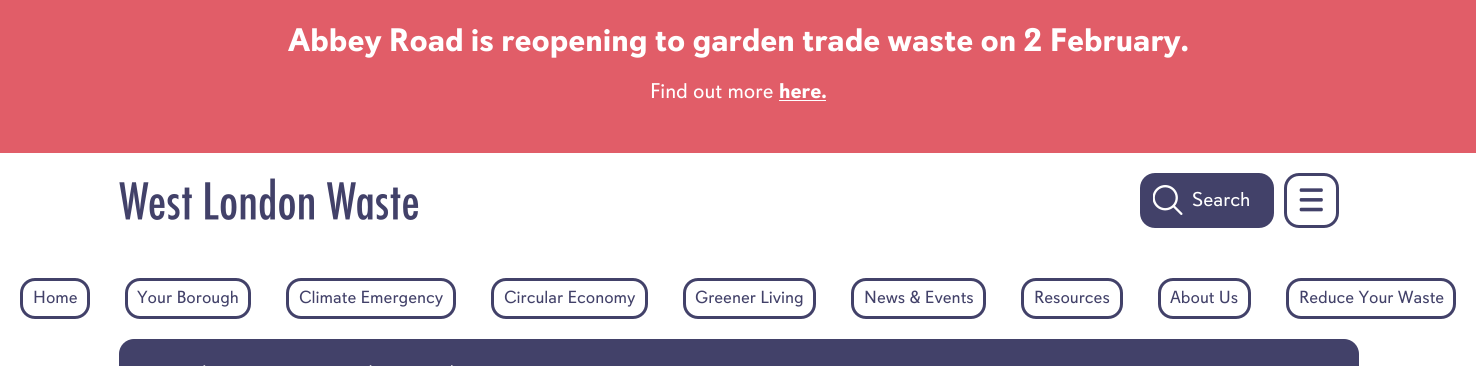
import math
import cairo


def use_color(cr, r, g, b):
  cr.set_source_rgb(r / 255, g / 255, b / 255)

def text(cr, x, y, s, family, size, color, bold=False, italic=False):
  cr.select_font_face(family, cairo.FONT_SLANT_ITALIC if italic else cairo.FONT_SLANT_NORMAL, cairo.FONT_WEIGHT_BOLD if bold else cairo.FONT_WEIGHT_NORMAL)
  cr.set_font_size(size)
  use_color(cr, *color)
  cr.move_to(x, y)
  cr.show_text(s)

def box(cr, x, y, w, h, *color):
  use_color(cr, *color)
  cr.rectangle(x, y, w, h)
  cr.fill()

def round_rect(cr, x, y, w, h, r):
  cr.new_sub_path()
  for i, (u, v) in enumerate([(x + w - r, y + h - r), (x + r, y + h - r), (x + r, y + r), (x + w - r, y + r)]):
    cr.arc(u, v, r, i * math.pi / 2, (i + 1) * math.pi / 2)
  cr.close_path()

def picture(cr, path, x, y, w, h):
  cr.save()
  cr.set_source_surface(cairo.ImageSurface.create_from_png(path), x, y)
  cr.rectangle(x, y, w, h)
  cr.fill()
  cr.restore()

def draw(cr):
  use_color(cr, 255, 255, 255)
  cr.paint()
  box(cr, 0, 0, 1476, 153, 225, 93, 104)
  box(cr, 779, 100, 47, 1, 255, 255, 255)
  picture(cr, "img_01.png", 119, 178, 300, 42)
  use_color(cr, 66, 65, 105)
  round_rect(cr, 1141.5, 174.5, 131, 52, 13.5)
  cr.fill_preserve()
  cr.set_line_width(3)
  cr.stroke()
  picture(cr, "img_02.png", 1153, 185, 30, 30)
  round_rect(cr, 1285.5, 174.5, 52, 52, 13.5)
  cr.stroke()
  picture(cr, "img_03.png", 1299, 188, 24, 24)
  round_rect(cr, 21.5, 279.5, 67, 38, 13.5)
  cr.stroke()
  round_rect(cr, 126.5, 279.5, 123, 38, 13.5)
  cr.stroke()
  round_rect(cr, 287.5, 279.5, 167, 38, 13.5)
  cr.stroke()
  round_rect(cr, 492.5, 279.5, 154, 38, 13.5)
  cr.stroke()
  round_rect(cr, 684.5, 279.5, 130, 38, 13.5)
  cr.stroke()
  round_rect(cr, 852.5, 279.5, 132, 38, 13.5)
  cr.stroke()
  round_rect(cr, 1022.5, 279.5, 99, 38, 13.5)
  cr.stroke()
  round_rect(cr, 1159.5, 279.5, 90, 38, 13.5)
  cr.stroke()
  round_rect(cr, 1287.5, 279.5, 167, 38, 13.5)
  cr.stroke()
  round_rect(cr, 119, 339, 1240, 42, 15)
  cr.fill()
  picture(cr, "img_04.png", 203, 365, 3, 1)
  picture(cr, "img_05.png", 369, 365, 3, 1)
  picture(cr, "img_06.png", 451, 365, 2, 1)
  text(cr, 288, 51, "Abbey Road is reopening to garden trade waste on 2 February.", "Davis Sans", 32.5, (255, 255, 255), bold=True)
  text(cr, 650, 98, "Find out more", "Davis Sans", 21.25, (255, 255, 255))
  text(cr, 779, 98, "here.", "Davis Sans", 21.25, (255, 255, 255), bold=True)
  text(cr, 1192, 206, "Search", "Davis Sans", 20, (255, 255, 255))
  text(cr, 33, 303, "Home", "Davis Sans", 17.5, (66, 65, 105))
  text(cr, 137, 303, "Your Borough", "Davis Sans", 17.5, (66, 65, 105))
  text(cr, 299, 303, "Climate Emergency", "Davis Sans", 17.5, (66, 65, 105))
  text(cr, 504, 303, "Circular Economy", "Davis Sans", 17.5, (66, 65, 105))
  text(cr, 695, 303, "Greener Living", "Davis Sans", 17.5, (66, 65, 105))
  text(cr, 864, 303, "News & Events", "Davis Sans", 17.5, (66, 65, 105))
  text(cr, 1034, 303, "Resources", "Davis Sans", 17.5, (66, 65, 105))
  text(cr, 1170, 303, "About Us", "Davis Sans", 17.5, (66, 65, 105))
  text(cr, 1299, 303, "Reduce Your Waste", "Davis Sans", 17.5, (66, 65, 105))


surface = cairo.ImageSurface(cairo.FORMAT_RGB24, 1476, 366)
cr = cairo.Context(surface)
options = cairo.FontOptions()
options.set_hint_metrics(cairo.HINT_METRICS_OFF)
options.set_hint_style(cairo.HINT_STYLE_NONE)
cr.set_font_options(options)
cr.set_miter_limit(4)
draw(cr)
surface.write_to_png("out.png")
